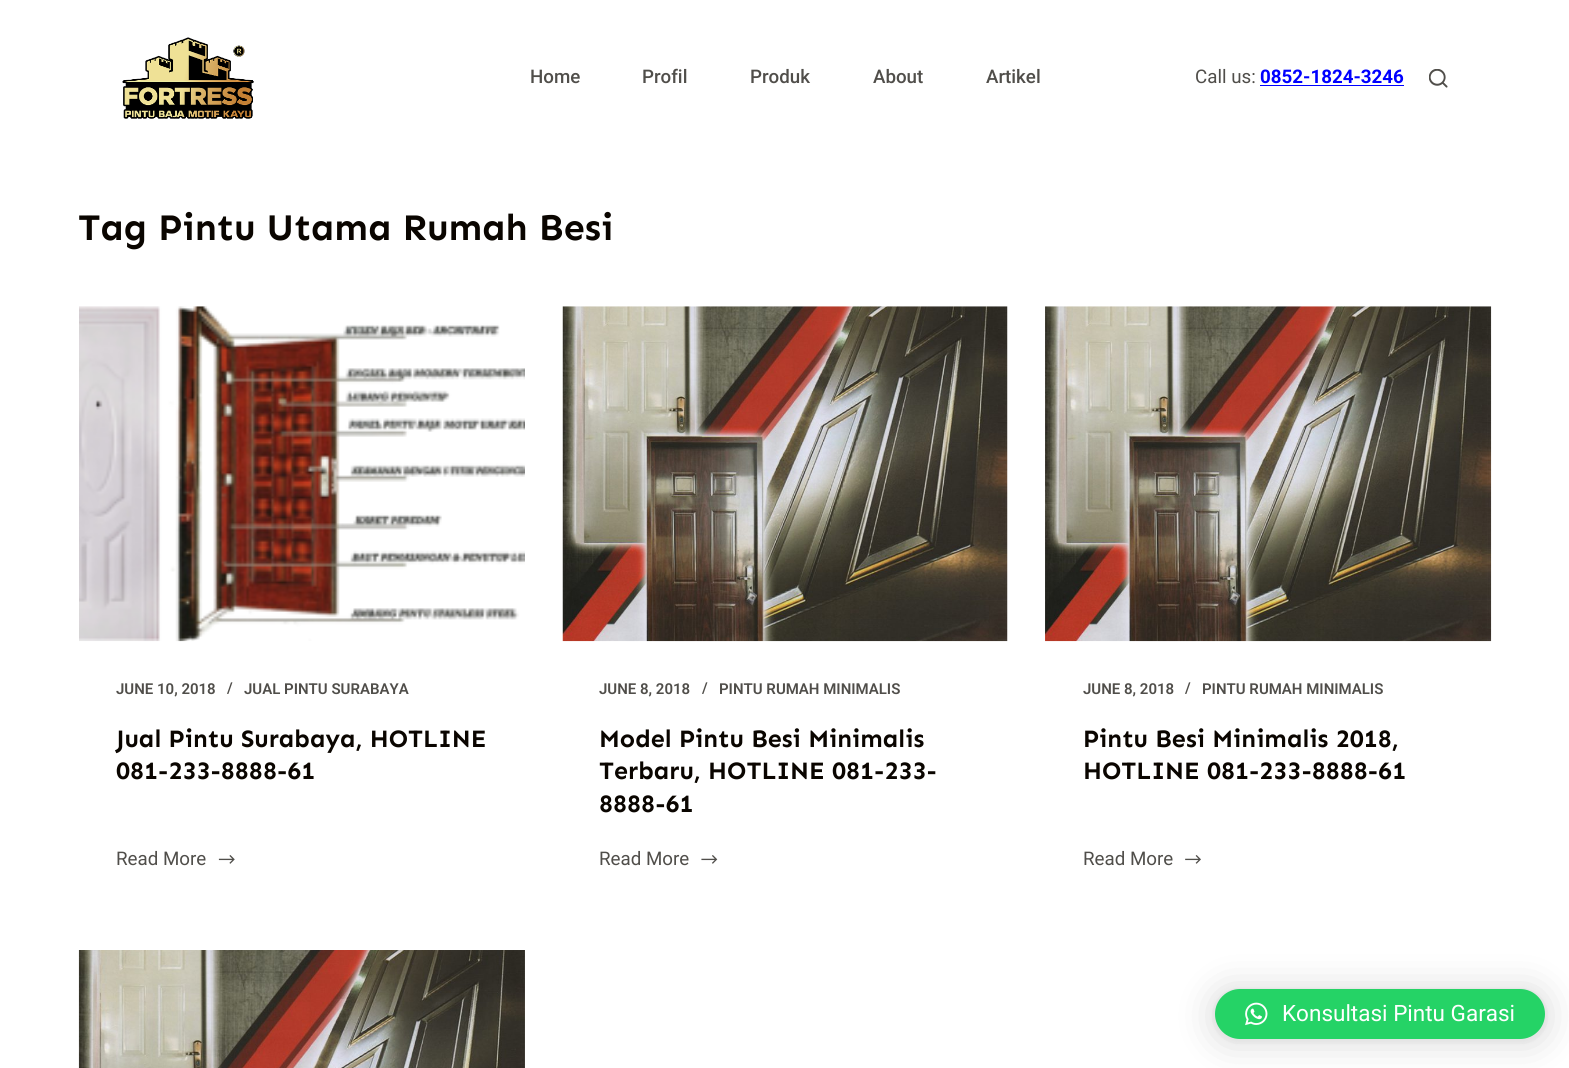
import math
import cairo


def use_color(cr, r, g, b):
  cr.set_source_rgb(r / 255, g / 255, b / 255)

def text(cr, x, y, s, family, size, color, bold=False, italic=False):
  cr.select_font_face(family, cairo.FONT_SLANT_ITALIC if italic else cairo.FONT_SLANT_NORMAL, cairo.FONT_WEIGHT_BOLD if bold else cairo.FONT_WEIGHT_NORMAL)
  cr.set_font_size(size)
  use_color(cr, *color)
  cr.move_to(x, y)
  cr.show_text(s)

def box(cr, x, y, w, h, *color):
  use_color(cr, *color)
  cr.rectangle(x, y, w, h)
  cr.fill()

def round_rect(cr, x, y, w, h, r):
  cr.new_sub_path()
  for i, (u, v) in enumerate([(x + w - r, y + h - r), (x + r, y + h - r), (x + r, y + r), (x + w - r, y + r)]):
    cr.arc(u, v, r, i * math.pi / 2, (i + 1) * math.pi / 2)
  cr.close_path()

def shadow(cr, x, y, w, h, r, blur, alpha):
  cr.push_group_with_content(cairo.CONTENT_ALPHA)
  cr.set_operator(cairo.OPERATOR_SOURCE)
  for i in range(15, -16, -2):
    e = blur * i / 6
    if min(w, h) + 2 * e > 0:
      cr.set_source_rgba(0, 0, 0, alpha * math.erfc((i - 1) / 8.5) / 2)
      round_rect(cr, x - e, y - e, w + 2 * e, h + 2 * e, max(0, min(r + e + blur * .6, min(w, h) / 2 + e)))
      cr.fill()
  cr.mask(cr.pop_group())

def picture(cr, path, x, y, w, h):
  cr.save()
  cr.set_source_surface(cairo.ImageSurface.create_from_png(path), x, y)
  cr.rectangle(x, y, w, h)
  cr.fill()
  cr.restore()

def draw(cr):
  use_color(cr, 255, 255, 255)
  cr.paint()
  picture(cr, "img_01.png", 122, 37, 132, 82)
  box(cr, 1260, 85, 144, 1, 0, 0, 255)
  picture(cr, "img_02.png", 1429, 69, 19, 19)
  picture(cr, "img_03.png", 79, 306, 446, 336)
  picture(cr, "img_04.png", 218, 855, 17, 9)
  picture(cr, "img_05.png", 562, 306, 446, 336)
  picture(cr, "img_06.png", 701, 855, 17, 9)
  picture(cr, "img_07.png", 1045, 306, 447, 336)
  picture(cr, "img_08.png", 1185, 855, 16, 9)
  picture(cr, "img_09.png", 78, 950, 447, 118)
  use_color(cr, 0, 0, 0)
  shadow(cr, 1215, 991, 330, 50, 25, 20, 0.16)
  shadow(cr, 1215, 990, 330, 50, 25, 4, 0.06)
  use_color(cr, 37, 211, 102)
  round_rect(cr, 1215, 989, 330, 50, 25)
  cr.fill()
  picture(cr, "img_10.png", 1245, 1002, 23, 24)
  text(cr, 530, 83, "Home", "Roboto Medium", 18.75, (80, 78, 74))
  text(cr, 642, 83, "Profil", "Roboto Medium", 18.75, (80, 78, 74))
  text(cr, 750, 83, "Produk", "Roboto Medium", 18.75, (80, 78, 74))
  text(cr, 873, 83, "About", "Roboto Medium", 18.75, (80, 78, 74))
  text(cr, 986, 83, "Artikel", "Roboto Medium", 18.75, (80, 78, 74))
  text(cr, 1195, 83, "Call us:", "Roboto", 18.75, (80, 78, 74))
  text(cr, 1260, 83, "0852-1824-3246", "Roboto", 18.75, (0, 0, 255), bold=True)
  text(cr, 78, 240, "Tag Pintu Utama Rumah Besi", "Sen", 37.5, (10, 5, 0), bold=True)
  text(cr, 116, 694, "JUNE 10, 2018", "Roboto SemiBold", 15, (80, 78, 74))
  text(cr, 227, 693, "/", "Roboto SemiBold", 15, (80, 78, 74))
  text(cr, 244, 694, "JUAL PINTU SURABAYA", "Roboto SemiBold", 15, (80, 78, 74))
  text(cr, 116, 747, "Jual Pintu Surabaya, HOTLINE", "Sen", 25, (10, 5, 0), bold=True)
  text(cr, 116, 779, "081-233-8888-61", "Sen", 25, (10, 5, 0), bold=True)
  text(cr, 116, 865, "Read More", "Roboto", 18.75, (80, 78, 74))
  text(cr, 599, 694, "JUNE 8, 2018", "Roboto SemiBold", 15, (80, 78, 74))
  text(cr, 702, 693, "/", "Roboto SemiBold", 15, (80, 78, 74))
  text(cr, 719, 694, "PINTU RUMAH MINIMALIS", "Roboto SemiBold", 15, (80, 78, 74))
  text(cr, 599, 747, "Model Pintu Besi Minimalis", "Sen", 25, (10, 5, 0), bold=True)
  text(cr, 599, 779, "Terbaru, HOTLINE 081-233-", "Sen", 25, (10, 5, 0), bold=True)
  text(cr, 599, 812, "8888-61", "Sen", 25, (10, 5, 0), bold=True)
  text(cr, 599, 865, "Read More", "Roboto", 18.75, (80, 78, 74))
  text(cr, 1083, 694, "JUNE 8, 2018", "Roboto SemiBold", 15, (80, 78, 74))
  text(cr, 1185, 693, "/", "Roboto SemiBold", 15, (80, 78, 74))
  text(cr, 1202, 694, "PINTU RUMAH MINIMALIS", "Roboto SemiBold", 15, (80, 78, 74))
  text(cr, 1083, 747, "Pintu Besi Minimalis 2018,", "Sen", 25, (10, 5, 0), bold=True)
  text(cr, 1083, 779, "HOTLINE 081-233-8888-61", "Sen", 25, (10, 5, 0), bold=True)
  text(cr, 1083, 865, "Read More", "Roboto", 18.75, (80, 78, 74))
  text(cr, 1282, 1021, "Konsultasi Pintu Garasi", "Roboto", 22.5, (255, 255, 255))


surface = cairo.ImageSurface(cairo.FORMAT_RGB24, 1569, 1068)
cr = cairo.Context(surface)
options = cairo.FontOptions()
options.set_hint_metrics(cairo.HINT_METRICS_OFF)
options.set_hint_style(cairo.HINT_STYLE_NONE)
cr.set_font_options(options)
cr.set_miter_limit(4)
draw(cr)
surface.write_to_png("out.png")
